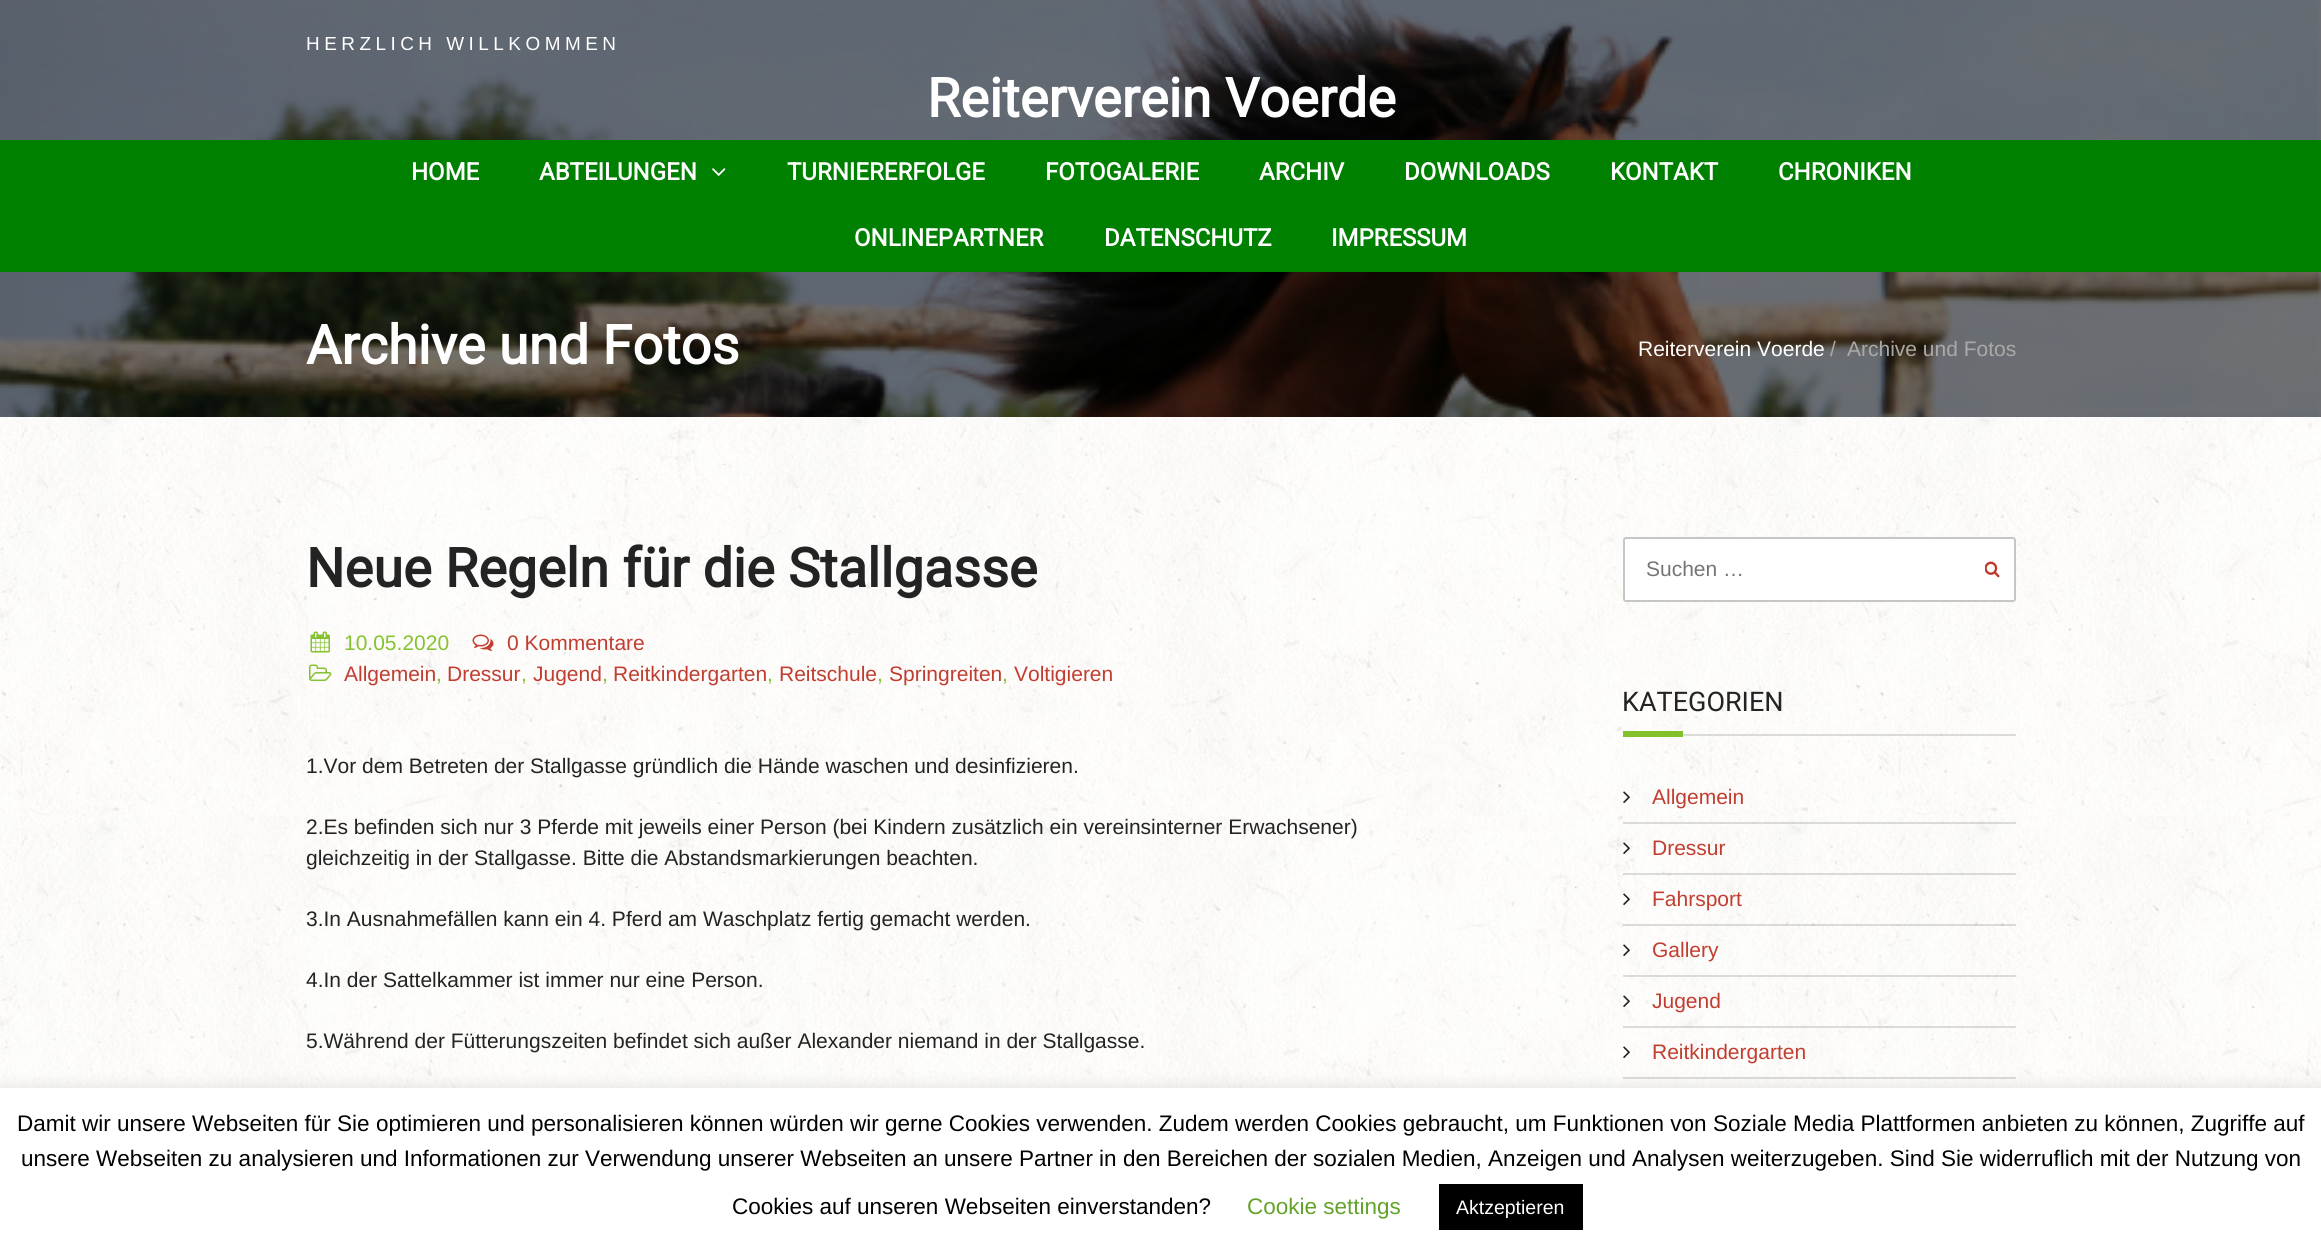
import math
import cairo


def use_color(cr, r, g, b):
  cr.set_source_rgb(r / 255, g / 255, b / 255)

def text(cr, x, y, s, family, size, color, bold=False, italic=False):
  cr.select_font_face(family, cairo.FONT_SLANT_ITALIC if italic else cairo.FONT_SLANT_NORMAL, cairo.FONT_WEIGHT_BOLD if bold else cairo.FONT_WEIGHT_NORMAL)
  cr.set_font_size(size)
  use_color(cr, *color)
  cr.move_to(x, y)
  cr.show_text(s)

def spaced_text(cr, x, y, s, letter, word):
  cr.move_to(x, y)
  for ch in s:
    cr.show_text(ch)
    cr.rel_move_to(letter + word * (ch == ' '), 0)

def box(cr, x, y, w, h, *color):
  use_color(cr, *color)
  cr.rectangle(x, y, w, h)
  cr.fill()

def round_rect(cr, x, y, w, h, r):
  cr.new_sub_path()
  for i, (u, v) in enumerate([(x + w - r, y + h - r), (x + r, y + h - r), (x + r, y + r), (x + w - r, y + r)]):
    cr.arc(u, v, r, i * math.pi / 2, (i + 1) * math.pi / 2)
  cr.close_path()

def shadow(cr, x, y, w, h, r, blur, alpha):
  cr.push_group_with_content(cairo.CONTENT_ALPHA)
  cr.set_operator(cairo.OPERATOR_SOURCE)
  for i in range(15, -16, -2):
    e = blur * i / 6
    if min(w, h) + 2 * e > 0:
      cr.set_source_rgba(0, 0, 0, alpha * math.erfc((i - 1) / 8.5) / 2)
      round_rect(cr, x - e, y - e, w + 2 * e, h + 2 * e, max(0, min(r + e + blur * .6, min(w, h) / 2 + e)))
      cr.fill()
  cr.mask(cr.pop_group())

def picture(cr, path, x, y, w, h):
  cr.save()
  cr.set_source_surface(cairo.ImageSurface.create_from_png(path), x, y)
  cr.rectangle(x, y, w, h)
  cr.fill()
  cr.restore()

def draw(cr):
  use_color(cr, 255, 255, 255)
  cr.paint()
  picture(cr, "img_01.png", 0, 417, 2321, 671)
  picture(cr, "img_02.png", 0, 0, 2321, 417)
  box(cr, 0, 140, 2321, 132, 0, 128, 0)
  picture(cr, "img_03.png", 712, 168, 14, 8)
  picture(cr, "img_04.png", 310, 631, 20, 22)
  picture(cr, "img_05.png", 472, 634, 22, 17)
  picture(cr, "img_06.png", 309, 664, 23, 17)
  use_color(cr, 255, 255, 255)
  round_rect(cr, 1623, 537, 393, 65, 3)
  cr.fill()
  picture(cr, "img_07.png", 1985, 561, 15, 17)
  round_rect(cr, 1624, 538, 391, 63, 2)
  cr.set_source_rgba(0.118, 0.118, 0.118, 0.25)
  cr.stroke()
  cr.set_source_rgba(0.118, 0.118, 0.118, 0.15)
  cr.rectangle(1683, 734, 333, 2)
  cr.fill()
  box(cr, 1623, 731, 60, 6, 130, 193, 42)
  cr.set_source_rgba(0.118, 0.118, 0.118, 0.15)
  cr.rectangle(1623, 822, 393, 2)
  cr.fill()
  picture(cr, "img_08.png", 1623, 791, 7, 12)
  cr.rectangle(1623, 873, 393, 2)
  cr.fill()
  picture(cr, "img_09.png", 1623, 842, 7, 12)
  cr.rectangle(1623, 924, 393, 2)
  cr.fill()
  picture(cr, "img_10.png", 1623, 893, 7, 12)
  cr.rectangle(1623, 975, 393, 2)
  cr.fill()
  picture(cr, "img_11.png", 1623, 944, 7, 12)
  cr.rectangle(1623, 1026, 393, 2)
  cr.fill()
  picture(cr, "img_12.png", 1623, 995, 7, 12)
  cr.rectangle(1623, 1077, 393, 2)
  cr.fill()
  picture(cr, "img_13.png", 1623, 1046, 7, 12)
  use_color(cr, 172, 171, 171)
  shadow(cr, 0, 1086, 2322, 168, 0, 7.5, 0.3)
  box(cr, 0, 1088, 2321, 167, 255, 255, 255)
  box(cr, 1439, 1184, 144, 46, 0, 0, 0)
  cr.select_font_face("Liberation Sans")
  cr.set_font_size(18.9)
  use_color(cr, 255, 255, 255)
  spaced_text(cr, 306, 50, "HERZLICH WILLKOMMEN", 4.5, 0)
  text(cr, 927, 117, "Reiterverein Voerde", "Roboto", 54, (255, 255, 255), bold=True)
  text(cr, 411, 180, "HOME", "Roboto", 24, (255, 255, 255), bold=True)
  text(cr, 539, 180, "ABTEILUNGEN", "Roboto", 24, (255, 255, 255), bold=True)
  text(cr, 787, 180, "TURNIERERFOLGE", "Roboto", 24, (255, 255, 255), bold=True)
  text(cr, 1045, 180, "FOTOGALERIE", "Roboto", 24, (255, 255, 255), bold=True)
  text(cr, 1259, 180, "ARCHIV", "Roboto", 24, (255, 255, 255), bold=True)
  text(cr, 1404, 180, "DOWNLOADS", "Roboto", 24, (255, 255, 255), bold=True)
  text(cr, 1610, 180, "KONTAKT", "Roboto", 24, (255, 255, 255), bold=True)
  text(cr, 1778, 180, "CHRONIKEN", "Roboto", 24, (255, 255, 255), bold=True)
  text(cr, 854, 246, "ONLINEPARTNER", "Roboto", 24, (255, 255, 255), bold=True)
  text(cr, 1104, 246, "DATENSCHUTZ", "Roboto", 24, (255, 255, 255), bold=True)
  text(cr, 1331, 246, "IMPRESSUM", "Roboto", 24, (255, 255, 255), bold=True)
  text(cr, 306, 364, "Archive und Fotos", "Roboto", 54, (255, 255, 255), bold=True)
  text(cr, 1638, 356, "Reiterverein Voerde", "Liberation Sans", 21, (255, 255, 255))
  text(cr, 1830, 356, "/", "Liberation Sans", 21, (171, 169, 167))
  text(cr, 1847, 356, "Archive und Fotos", "Liberation Sans", 21, (171, 169, 167))
  text(cr, 306, 587, "Neue Regeln für die Stallgasse", "Roboto", 54, (35, 35, 35), bold=True)
  text(cr, 344, 650, "10.05.2020", "Liberation Sans", 21, (133, 194, 47))
  text(cr, 507, 650, "0 Kommentare", "Liberation Sans", 21, (193, 61, 48))
  text(cr, 344, 681, "Allgemein", "Liberation Sans", 21, (193, 61, 48))
  text(cr, 436, 681, ",", "Liberation Sans", 21, (133, 194, 47))
  text(cr, 447, 681, "Dressur", "Liberation Sans", 21, (193, 61, 48))
  text(cr, 521, 681, ",", "Liberation Sans", 21, (133, 194, 47))
  text(cr, 533, 681, "Jugend", "Liberation Sans", 21, (193, 61, 48))
  text(cr, 602, 681, ",", "Liberation Sans", 21, (133, 194, 47))
  text(cr, 613, 681, "Reitkindergarten", "Liberation Sans", 21, (193, 61, 48))
  text(cr, 767, 681, ",", "Liberation Sans", 21, (133, 194, 47))
  text(cr, 779, 681, "Reitschule", "Liberation Sans", 21, (193, 61, 48))
  text(cr, 877, 681, ",", "Liberation Sans", 21, (133, 194, 47))
  text(cr, 889, 681, "Springreiten", "Liberation Sans", 21, (193, 61, 48))
  text(cr, 1002, 681, ",", "Liberation Sans", 21, (133, 194, 47))
  text(cr, 1014, 681, "Voltigieren", "Liberation Sans", 21, (193, 61, 48))
  text(cr, 306, 773, "1.Vor dem Betreten der Stallgasse gründlich die Hände waschen und desinfizieren.", "Liberation Sans", 21, (35, 35, 35))
  text(cr, 306, 834, "2.Es befinden sich nur 3 Pferde mit jeweils einer Person (bei Kindern zusätzlich ein vereinsinterner Erwachsener)", "Liberation Sans", 21, (35, 35, 35))
  text(cr, 306, 865, "gleichzeitig in der Stallgasse. Bitte die Abstandsmarkierungen beachten.", "Liberation Sans", 21, (35, 35, 35))
  text(cr, 306, 926, "3.In Ausnahmefällen kann ein 4. Pferd am Waschplatz fertig gemacht werden.", "Liberation Sans", 21, (35, 35, 35))
  text(cr, 306, 987, "4.In der Sattelkammer ist immer nur eine Person.", "Liberation Sans", 21, (35, 35, 35))
  text(cr, 306, 1048, "5.Während der Fütterungszeiten befindet sich außer Alexander niemand in der Stallgasse.", "Liberation Sans", 21, (35, 35, 35))
  text(cr, 1646, 576, "Suchen …", "Liberation Sans", 21, (117, 117, 117))
  text(cr, 1622, 711, "KATEGORIEN", "Roboto", 27, (35, 35, 35))
  text(cr, 1652, 804, "Allgemein", "Liberation Sans", 21, (193, 61, 48))
  text(cr, 1652, 855, "Dressur", "Liberation Sans", 21, (193, 61, 48))
  text(cr, 1652, 906, "Fahrsport", "Liberation Sans", 21, (193, 61, 48))
  text(cr, 1652, 957, "Gallery", "Liberation Sans", 21, (193, 61, 48))
  text(cr, 1652, 1008, "Jugend", "Liberation Sans", 21, (193, 61, 48))
  text(cr, 1652, 1059, "Reitkindergarten", "Liberation Sans", 21, (193, 61, 48))
  text(cr, 17, 1131, "Damit wir unsere Webseiten für Sie optimieren und personalisieren können würden wir gerne Cookies verwenden. Zudem werden Cookies gebraucht, um Funktionen von Soziale Media Plattformen anbieten zu können, Zugriffe auf", "Liberation Sans", 22.5, (0, 0, 0))
  text(cr, 21, 1166, "unsere Webseiten zu analysieren und Informationen zur Verwendung unserer Webseiten an unsere Partner in den Bereichen der sozialen Medien, Anzeigen und Analysen weiterzugeben. Sind Sie widerruflich mit der Nutzung von", "Liberation Sans", 22.5, (0, 0, 0))
  text(cr, 732, 1214, "Cookies auf unseren Webseiten einverstanden?", "Liberation Sans", 22.5, (0, 0, 0))
  text(cr, 1247, 1214, "Cookie settings", "Liberation Sans", 22.5, (98, 163, 41))
  text(cr, 1456, 1214, "Aktzeptieren", "Liberation Sans", 19.5, (255, 255, 255))


surface = cairo.ImageSurface(cairo.FORMAT_RGB24, 2321, 1255)
cr = cairo.Context(surface)
options = cairo.FontOptions()
options.set_hint_metrics(cairo.HINT_METRICS_OFF)
options.set_hint_style(cairo.HINT_STYLE_NONE)
cr.set_font_options(options)
cr.set_miter_limit(4)
draw(cr)
surface.write_to_png("out.png")
